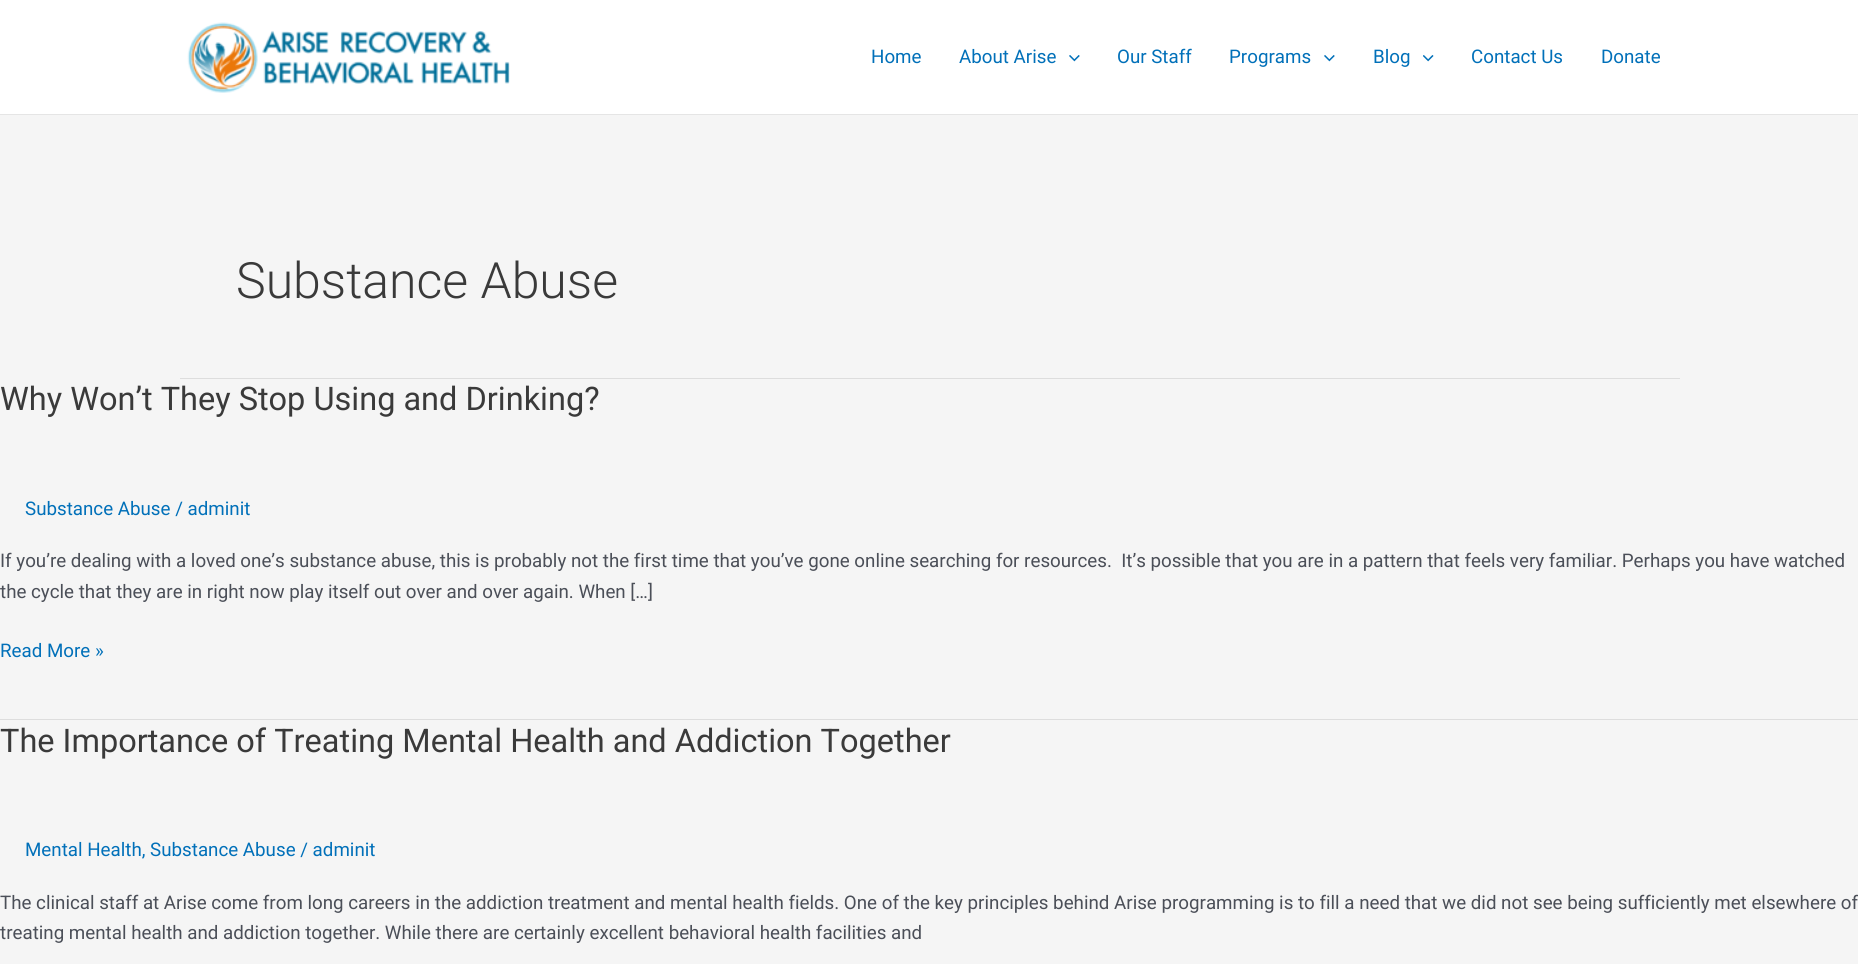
import math
import cairo


def use_color(cr, r, g, b):
  cr.set_source_rgb(r / 255, g / 255, b / 255)

def text(cr, x, y, s, family, size, color, bold=False, italic=False):
  cr.select_font_face(family, cairo.FONT_SLANT_ITALIC if italic else cairo.FONT_SLANT_NORMAL, cairo.FONT_WEIGHT_BOLD if bold else cairo.FONT_WEIGHT_NORMAL)
  cr.set_font_size(size)
  use_color(cr, *color)
  cr.move_to(x, y)
  cr.show_text(s)

def box(cr, x, y, w, h, *color):
  use_color(cr, *color)
  cr.rectangle(x, y, w, h)
  cr.fill()

def picture(cr, path, x, y, w, h):
  cr.save()
  cr.set_source_surface(cairo.ImageSurface.create_from_png(path), x, y)
  cr.rectangle(x, y, w, h)
  cr.fill()
  cr.restore()

def draw(cr):
  use_color(cr, 245, 245, 245)
  cr.paint()
  box(cr, 0, 0, 1858, 114, 255, 255, 255)
  box(cr, 0, 114, 1858, 1, 229, 229, 229)
  picture(cr, "img_01.png", 187, 22, 323, 71)
  picture(cr, "img_02.png", 1069, 55, 11, 7)
  picture(cr, "img_02.png", 1324, 55, 11, 7)
  picture(cr, "img_03.png", 1423, 55, 11, 7)
  box(cr, 180, 378, 1500, 1, 221, 221, 221)
  box(cr, 0, 719, 1858, 1, 221, 221, 221)
  text(cr, 871, 63, "Home", "Roboto", 18.75, (1, 112, 185))
  text(cr, 959, 63, "About Arise", "Roboto", 18.75, (1, 112, 185))
  text(cr, 1117, 63, "Our Staff", "Roboto", 18.75, (1, 112, 185))
  text(cr, 1229, 63, "Programs", "Roboto", 18.75, (1, 112, 185))
  text(cr, 1373, 63, "Blog", "Roboto", 18.75, (1, 112, 185))
  text(cr, 1471, 63, "Contact Us", "Roboto", 18.75, (1, 112, 185))
  text(cr, 1601, 63, "Donate", "Roboto", 18.75, (1, 112, 185))
  text(cr, 236, 298, "Substance Abuse", "Roboto Light", 50, (58, 58, 58))
  text(cr, 0, 410, "Why Won’t They Stop Using and Drinking?", "Roboto", 32.5, (58, 58, 58))
  text(cr, 25, 515, "Substance Abuse / adminit", "Roboto", 18.75, (1, 112, 185))
  text(cr, 0, 567, "If you’re dealing with a loved one’s substance abuse, this is probably not the first time that you’ve gone online searching for resources.  It’s possible that you are in a pattern that feels very familiar. Perhaps you have watched", "Roboto", 18.75, (75, 79, 88))
  text(cr, 0, 598, "the cycle that they are in right now play itself out over and over again. When […]", "Roboto", 18.75, (75, 79, 88))
  text(cr, 0, 657, "Read More »", "Roboto", 18.75, (1, 112, 185))
  text(cr, 0, 752, "The Importance of Treating Mental Health and Addiction Together", "Roboto", 32.5, (58, 58, 58))
  text(cr, 25, 856, "Mental Health, Substance Abuse / adminit", "Roboto", 18.75, (1, 112, 185))
  text(cr, 0, 909, "The clinical staff at Arise come from long careers in the addiction treatment and mental health fields. One of the key principles behind Arise programming is to fill a need that we did not see being sufficiently met elsewhere of", "Roboto", 18.75, (75, 79, 88))
  text(cr, 0, 939, "treating mental health and addiction together. While there are certainly excellent behavioral health facilities and", "Roboto", 18.75, (75, 79, 88))


surface = cairo.ImageSurface(cairo.FORMAT_RGB24, 1858, 964)
cr = cairo.Context(surface)
options = cairo.FontOptions()
options.set_hint_metrics(cairo.HINT_METRICS_OFF)
options.set_hint_style(cairo.HINT_STYLE_NONE)
cr.set_font_options(options)
cr.set_miter_limit(4)
draw(cr)
surface.write_to_png("out.png")
